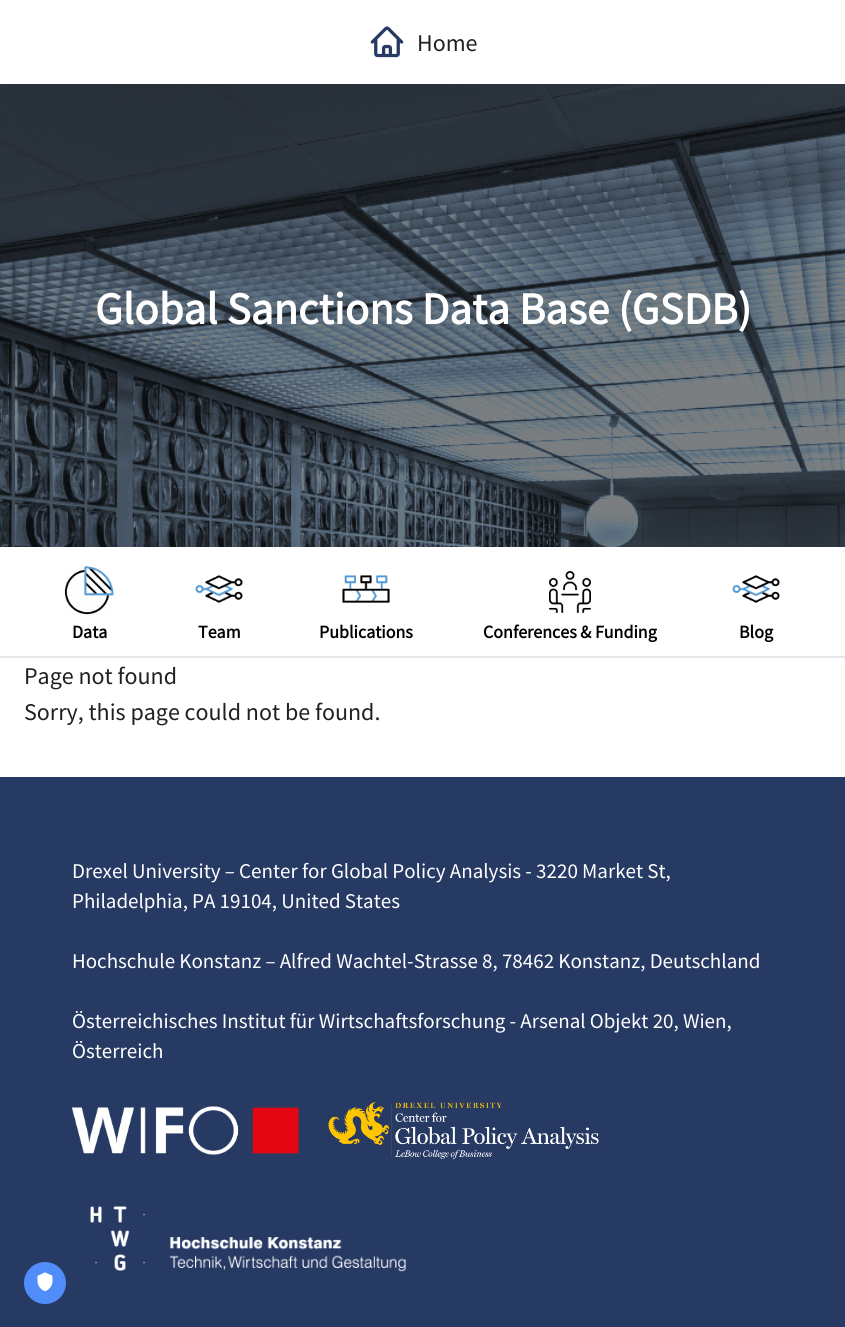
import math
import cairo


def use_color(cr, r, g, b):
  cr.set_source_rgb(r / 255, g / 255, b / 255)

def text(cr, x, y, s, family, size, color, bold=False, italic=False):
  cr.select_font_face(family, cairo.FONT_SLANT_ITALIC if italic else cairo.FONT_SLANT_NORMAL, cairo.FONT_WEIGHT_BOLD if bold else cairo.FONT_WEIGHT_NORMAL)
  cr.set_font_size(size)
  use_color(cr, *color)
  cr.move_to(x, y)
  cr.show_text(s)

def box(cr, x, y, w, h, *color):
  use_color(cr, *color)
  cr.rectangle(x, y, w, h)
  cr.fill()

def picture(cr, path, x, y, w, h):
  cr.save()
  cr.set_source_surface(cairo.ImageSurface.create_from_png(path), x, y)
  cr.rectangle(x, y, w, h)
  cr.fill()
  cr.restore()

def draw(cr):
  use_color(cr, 255, 255, 255)
  cr.paint()
  picture(cr, "img_01.png", 370, 26, 34, 32)
  picture(cr, "img_02.png", 0, 84, 845, 463)
  picture(cr, "img_03.png", 64, 566, 50, 49)
  picture(cr, "img_04.png", 195, 575, 48, 28)
  picture(cr, "img_05.png", 342, 575, 48, 28)
  picture(cr, "img_06.png", 549, 571, 42, 42)
  picture(cr, "img_07.png", 732, 575, 48, 28)
  box(cr, 0, 656, 845, 2, 229, 231, 235)
  box(cr, 0, 777, 845, 550, 39, 58, 100)
  picture(cr, "img_08.png", 72, 1106, 227, 49)
  picture(cr, "img_09.png", 328, 1102, 271, 57)
  picture(cr, "img_10.png", 90, 1206, 55, 65)
  picture(cr, "img_11.png", 169, 1237, 238, 35)
  use_color(cr, 80, 141, 250)
  cr.arc(45, 1283, 21, 0, 2 * math.pi)
  cr.fill()
  picture(cr, "img_12.png", 37, 1272, 16, 20)
  text(cr, 417, 51, "Home", "Source Sans Pro", 24, (35, 31, 32))
  text(cr, 95, 324, "Global Sanctions Data Base (GSDB)", "Source Sans Pro", 45, (255, 255, 255), bold=True)
  text(cr, 72, 638, "Data", "Source Sans Pro", 18, (0, 0, 0), bold=True)
  text(cr, 198, 638, "Team", "Source Sans Pro", 18, (0, 0, 0), bold=True)
  text(cr, 319, 638, "Publications", "Source Sans Pro", 18, (0, 0, 0), bold=True)
  text(cr, 483, 638, "Conferences & Funding", "Source Sans Pro", 18, (0, 0, 0), bold=True)
  text(cr, 739, 638, "Blog", "Source Sans Pro", 18, (0, 0, 0), bold=True)
  text(cr, 24, 684, "Page not found", "Source Sans Pro", 24, (35, 31, 32))
  text(cr, 24, 720, "Sorry, this page could not be found.", "Source Sans Pro", 24, (35, 31, 32))
  text(cr, 72, 878, "Drexel University – Center for Global Policy Analysis - 3220 Market St,", "Source Sans Pro", 21, (255, 255, 255))
  text(cr, 72, 908, "Philadelphia, PA 19104, United States", "Source Sans Pro", 21, (255, 255, 255))
  text(cr, 72, 968, "Hochschule Konstanz – Alfred Wachtel-Strasse 8, 78462 Konstanz, Deutschland", "Source Sans Pro", 21, (255, 255, 255))
  text(cr, 72, 1028, "Österreichisches Institut für Wirtschaftsforschung - Arsenal Objekt 20, Wien,", "Source Sans Pro", 21, (255, 255, 255))
  text(cr, 72, 1058, "Österreich", "Source Sans Pro", 21, (255, 255, 255))


surface = cairo.ImageSurface(cairo.FORMAT_RGB24, 845, 1327)
cr = cairo.Context(surface)
options = cairo.FontOptions()
options.set_hint_metrics(cairo.HINT_METRICS_OFF)
options.set_hint_style(cairo.HINT_STYLE_NONE)
cr.set_font_options(options)
cr.set_miter_limit(4)
draw(cr)
surface.write_to_png("out.png")
